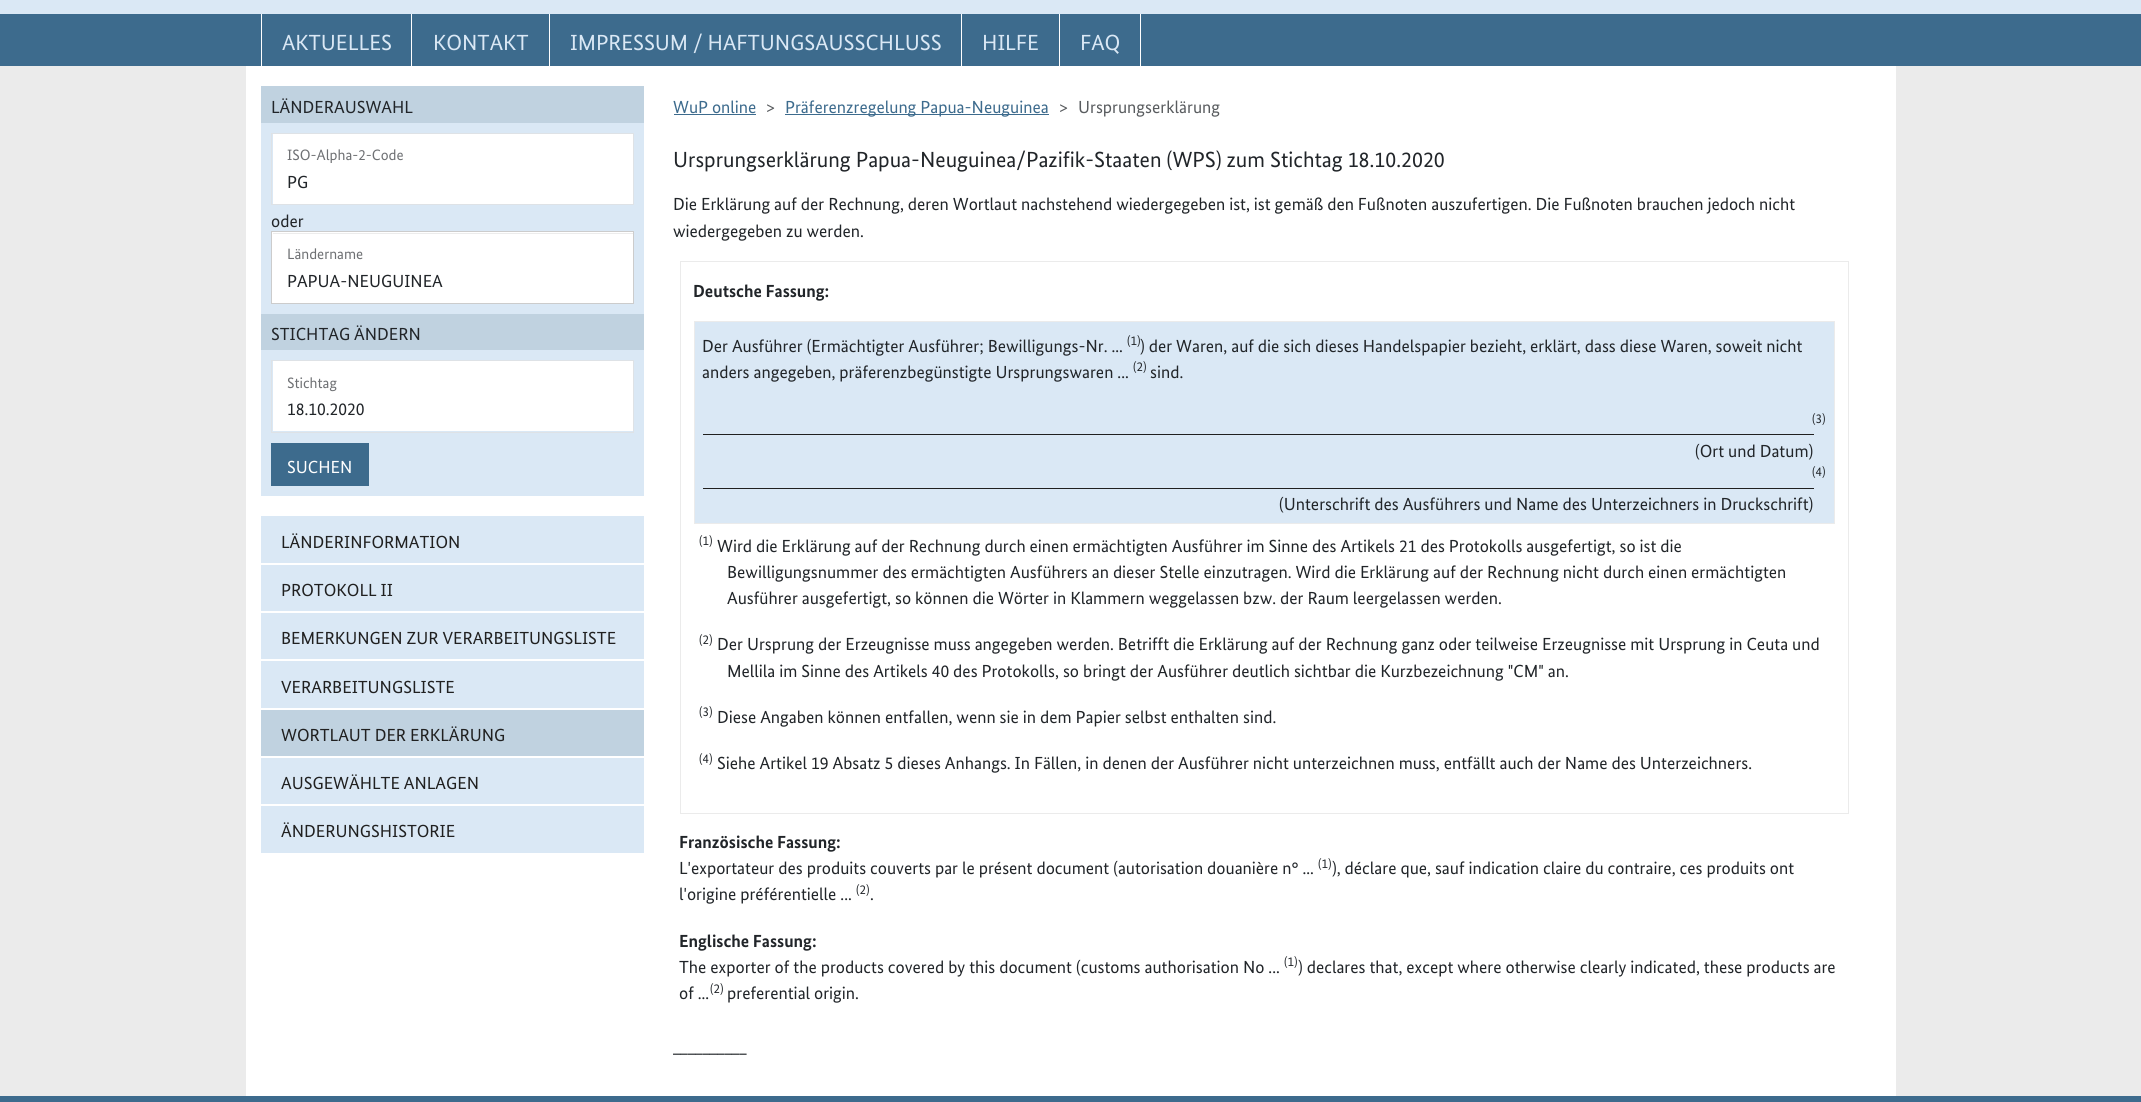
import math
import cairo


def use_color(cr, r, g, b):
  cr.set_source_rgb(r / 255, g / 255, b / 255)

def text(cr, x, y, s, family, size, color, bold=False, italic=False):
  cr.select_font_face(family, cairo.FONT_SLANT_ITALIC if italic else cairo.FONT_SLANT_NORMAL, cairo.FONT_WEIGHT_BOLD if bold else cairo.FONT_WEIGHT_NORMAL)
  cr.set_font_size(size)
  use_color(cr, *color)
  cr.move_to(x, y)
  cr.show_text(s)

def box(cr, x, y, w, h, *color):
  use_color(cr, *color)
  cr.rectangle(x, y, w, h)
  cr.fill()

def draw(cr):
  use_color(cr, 218, 232, 245)
  cr.paint()
  box(cr, 0, 14, 2141, 52, 61, 107, 141)
  box(cr, 261, 14, 1, 52, 255, 255, 255)
  box(cr, 411, 14, 1, 52, 255, 255, 255)
  box(cr, 549, 14, 1, 52, 255, 255, 255)
  box(cr, 961, 14, 1, 52, 255, 255, 255)
  box(cr, 1140, 14, 1, 52, 255, 255, 255)
  box(cr, 1059, 14, 1, 52, 255, 255, 255)
  box(cr, 0, 66, 2141, 1030, 235, 235, 235)
  box(cr, 246, 66, 1650, 1030, 255, 255, 255)
  box(cr, 261, 123, 383, 373, 218, 232, 245)
  box(cr, 261, 86, 383, 37, 192, 210, 224)
  box(cr, 273, 134, 360, 70, 255, 255, 255)
  cr.rectangle(271.5, 133.5, 362, 71)
  use_color(cr, 222, 226, 230)
  cr.set_line_width(1)
  cr.stroke()
  box(cr, 272, 232, 361, 71, 255, 255, 255)
  box(cr, 273, 233, 360, 1, 236, 236, 236)
  cr.rectangle(271.5, 231.5, 362, 72)
  use_color(cr, 204, 204, 204)
  cr.stroke()
  box(cr, 261, 314, 383, 36, 192, 210, 224)
  box(cr, 273, 361, 360, 70, 255, 255, 255)
  cr.rectangle(271.5, 360.5, 362, 72)
  use_color(cr, 222, 226, 230)
  cr.stroke()
  box(cr, 271, 443, 98, 43, 61, 107, 141)
  box(cr, 261, 516, 383, 47, 218, 232, 245)
  box(cr, 261, 565, 383, 46, 218, 232, 245)
  box(cr, 261, 613, 383, 46, 218, 232, 245)
  box(cr, 261, 661, 383, 47, 218, 232, 245)
  box(cr, 261, 710, 383, 46, 192, 210, 224)
  box(cr, 261, 758, 383, 46, 218, 232, 245)
  box(cr, 261, 806, 383, 47, 218, 232, 245)
  box(cr, 674, 114, 82, 1, 61, 107, 141)
  box(cr, 785, 114, 264, 1, 61, 107, 141)
  cr.rectangle(680.5, 261.5, 1168, 552)
  use_color(cr, 235, 235, 235)
  cr.stroke()
  use_color(cr, 218, 232, 245)
  cr.rectangle(694.5, 321.5, 1140, 202)
  cr.fill_preserve()
  use_color(cr, 235, 235, 235)
  cr.stroke()
  box(cr, 703, 434, 1111, 1, 32, 32, 32)
  box(cr, 703, 488, 1111, 1, 32, 32, 32)
  box(cr, 0, 1096, 2141, 6, 61, 107, 141)
  text(cr, 282, 50, "AKTUELLES", "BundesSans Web", 21.9, (218, 232, 245))
  text(cr, 433, 50, "KONTAKT", "BundesSans Web", 21.9, (218, 232, 245))
  text(cr, 570, 50, "IMPRESSUM / HAFTUNGSAUSSCHLUSS", "BundesSans Web", 21.9, (218, 232, 245))
  text(cr, 982, 50, "HILFE", "BundesSans Web", 21.9, (218, 232, 245))
  text(cr, 1080, 50, "FAQ", "BundesSans Web", 21.9, (218, 232, 245))
  text(cr, 271, 113, "LÄNDERAUSWAHL", "BundesSans Web", 17.5, (33, 37, 41))
  text(cr, 287, 160, "ISO-Alpha-2-Code", "BundesSans Web", 15, (111, 113, 116))
  text(cr, 287, 188, "PG", "BundesSans Web", 17.5, (33, 37, 41))
  text(cr, 271, 227, "oder", "BundesSans Web", 17.5, (33, 37, 41))
  text(cr, 287, 259, "Ländername", "BundesSans Web", 15, (111, 113, 116))
  text(cr, 287, 287, "PAPUA-NEUGUINEA", "BundesSans Web", 17.5, (33, 37, 41))
  text(cr, 271, 340, "STICHTAG ÄNDERN", "BundesSans Web", 17.5, (33, 37, 41))
  text(cr, 287, 388, "Stichtag", "BundesSans Web", 15, (111, 113, 116))
  text(cr, 287, 415, "18.10.2020", "BundesSans Web", 17.5, (33, 37, 41))
  text(cr, 287, 473, "SUCHEN", "BundesSans Web", 17.5, (255, 255, 255))
  text(cr, 281, 548, "LÄNDERINFORMATION", "BundesSans Web", 17.5, (32, 32, 32))
  text(cr, 281, 596, "PROTOKOLL II", "BundesSans Web", 17.5, (32, 32, 32))
  text(cr, 281, 644, "BEMERKUNGEN ZUR VERARBEITUNGSLISTE", "BundesSans Web", 17.5, (32, 32, 32))
  text(cr, 281, 693, "VERARBEITUNGSLISTE", "BundesSans Web", 17.5, (32, 32, 32))
  text(cr, 281, 741, "WORTLAUT DER ERKLÄRUNG", "BundesSans Web", 17.5, (32, 32, 32))
  text(cr, 281, 789, "AUSGEWÄHLTE ANLAGEN", "BundesSans Web", 17.5, (32, 32, 32))
  text(cr, 281, 837, "ÄNDERUNGSHISTORIE", "BundesSans Web", 17.5, (32, 32, 32))
  text(cr, 673, 113, "WuP online", "BundesSans Web", 17.5, (61, 107, 141))
  text(cr, 766, 113, ">", "BundesSans Web", 17.5, (89, 92, 95))
  text(cr, 785, 113, "Präferenzregelung Papua-Neuguinea", "BundesSans Web", 17.5, (61, 107, 141))
  text(cr, 1059, 113, ">", "BundesSans Web", 17.5, (89, 92, 95))
  text(cr, 1078, 113, "Ursprungserklärung", "BundesSans Web", 17.5, (89, 92, 95))
  text(cr, 673, 167, "Ursprungserklärung Papua-Neuguinea/Pazifik-Staaten (WPS) zum Stichtag 18.10.2020", "BundesSans Web", 21.9, (33, 37, 41))
  text(cr, 673, 210, "Die Erklärung auf der Rechnung, deren Wortlaut nachstehend wiedergegeben ist, ist gemäß den Fußnoten auszufertigen. Die Fußnoten brauchen jedoch nicht", "BundesSans Web", 17.5, (33, 37, 41))
  text(cr, 673, 237, "wiedergegeben zu werden.", "BundesSans Web", 17.5, (33, 37, 41))
  text(cr, 693, 297, "Deutsche Fassung:", "BundesSans Web", 17.5, (33, 37, 41), bold=True)
  text(cr, 702, 352, "Der Ausführer (Ermächtigter Ausführer; Bewilligungs-Nr. ...", "BundesSans Web", 17.5, (33, 37, 41))
  text(cr, 1127, 345, "(1)", "BundesSans Web", 13, (33, 37, 41))
  text(cr, 1140, 352, ") der Waren, auf die sich dieses Handelspapier bezieht, erklärt, dass diese Waren, soweit nicht", "BundesSans Web", 17.5, (33, 37, 41))
  text(cr, 702, 378, "anders angegeben, präferenzbegünstigte Ursprungswaren ...", "BundesSans Web", 17.5, (33, 37, 41))
  text(cr, 1133, 371, "(2)", "BundesSans Web", 13, (33, 37, 41))
  text(cr, 1150, 378, "sind.", "BundesSans Web", 17.5, (33, 37, 41))
  text(cr, 1812, 423, "(3)", "BundesSans Web", 13, (33, 37, 41))
  text(cr, 1695, 457, "(Ort und Datum)", "BundesSans Web", 17.5, (33, 37, 41))
  text(cr, 1812, 476, "(4)", "BundesSans Web", 13, (33, 37, 41))
  text(cr, 1279, 510, "(Unterschrift des Ausführers und Name des Unterzeichners in Druckschrift)", "BundesSans Web", 17.5, (33, 37, 41))
  text(cr, 699, 545, "(1)", "BundesSans Web", 13, (33, 37, 41))
  text(cr, 717, 552, "Wird die Erklärung auf der Rechnung durch einen ermächtigten Ausführer im Sinne des Artikels 21 des Protokolls ausgefertigt, so ist die", "BundesSans Web", 17.5, (33, 37, 41))
  text(cr, 727, 578, "Bewilligungsnummer des ermächtigten Ausführers an dieser Stelle einzutragen. Wird die Erklärung auf der Rechnung nicht durch einen ermächtigten", "BundesSans Web", 17.5, (33, 37, 41))
  text(cr, 727, 604, "Ausführer ausgefertigt, so können die Wörter in Klammern weggelassen bzw. der Raum leergelassen werden.", "BundesSans Web", 17.5, (33, 37, 41))
  text(cr, 699, 644, "(2)", "BundesSans Web", 13, (33, 37, 41))
  text(cr, 717, 650, "Der Ursprung der Erzeugnisse muss angegeben werden. Betrifft die Erklärung auf der Rechnung ganz oder teilweise Erzeugnisse mit Ursprung in Ceuta und", "BundesSans Web", 17.5, (33, 37, 41))
  text(cr, 727, 677, "Mellila im Sinne des Artikels 40 des Protokolls, so bringt der Ausführer deutlich sichtbar die Kurzbezeichnung \"CM\" an.", "BundesSans Web", 17.5, (33, 37, 41))
  text(cr, 699, 716, "(3)", "BundesSans Web", 13, (33, 37, 41))
  text(cr, 717, 723, "Diese Angaben können entfallen, wenn sie in dem Papier selbst enthalten sind.", "BundesSans Web", 17.5, (33, 37, 41))
  text(cr, 699, 763, "(4)", "BundesSans Web", 13, (33, 37, 41))
  text(cr, 717, 769, "Siehe Artikel 19 Absatz 5 dieses Anhangs. In Fällen, in denen der Ausführer nicht unterzeichnen muss, entfällt auch der Name des Unterzeichners.", "BundesSans Web", 17.5, (33, 37, 41))
  text(cr, 679, 848, "Französische Fassung:", "BundesSans Web", 17.5, (33, 37, 41), bold=True)
  text(cr, 679, 874, "L'exportateur des produits couverts par le présent document (autorisation douanière n° ...", "BundesSans Web", 17.5, (33, 37, 41))
  text(cr, 1318, 868, "(1)", "BundesSans Web", 13, (33, 37, 41))
  text(cr, 1332, 874, "), déclare que, sauf indication claire du contraire, ces produits ont", "BundesSans Web", 17.5, (33, 37, 41))
  text(cr, 679, 900, "l'origine préférentielle ...", "BundesSans Web", 17.5, (33, 37, 41))
  text(cr, 856, 894, "(2)", "BundesSans Web", 13, (33, 37, 41))
  text(cr, 870, 900, ".", "BundesSans Web", 17.5, (33, 37, 41))
  text(cr, 679, 947, "Englische Fassung:", "BundesSans Web", 17.5, (33, 37, 41), bold=True)
  text(cr, 679, 973, "The exporter of the products covered by this document (customs authorisation No ...", "BundesSans Web", 17.5, (33, 37, 41))
  text(cr, 1284, 966, "(1)", "BundesSans Web", 13, (33, 37, 41))
  text(cr, 1298, 973, ") declares that, except where otherwise clearly indicated, these products are", "BundesSans Web", 17.5, (33, 37, 41))
  text(cr, 679, 999, "of ...", "BundesSans Web", 17.5, (33, 37, 41))
  text(cr, 710, 993, "(2)", "BundesSans Web", 13, (33, 37, 41))
  text(cr, 727, 999, "preferential origin.", "BundesSans Web", 17.5, (33, 37, 41))
  text(cr, 673, 1052, "__________", "BundesSans Web", 17.5, (33, 37, 41))


surface = cairo.ImageSurface(cairo.FORMAT_RGB24, 2141, 1102)
cr = cairo.Context(surface)
options = cairo.FontOptions()
options.set_hint_metrics(cairo.HINT_METRICS_OFF)
options.set_hint_style(cairo.HINT_STYLE_NONE)
cr.set_font_options(options)
cr.set_miter_limit(4)
draw(cr)
surface.write_to_png("out.png")
